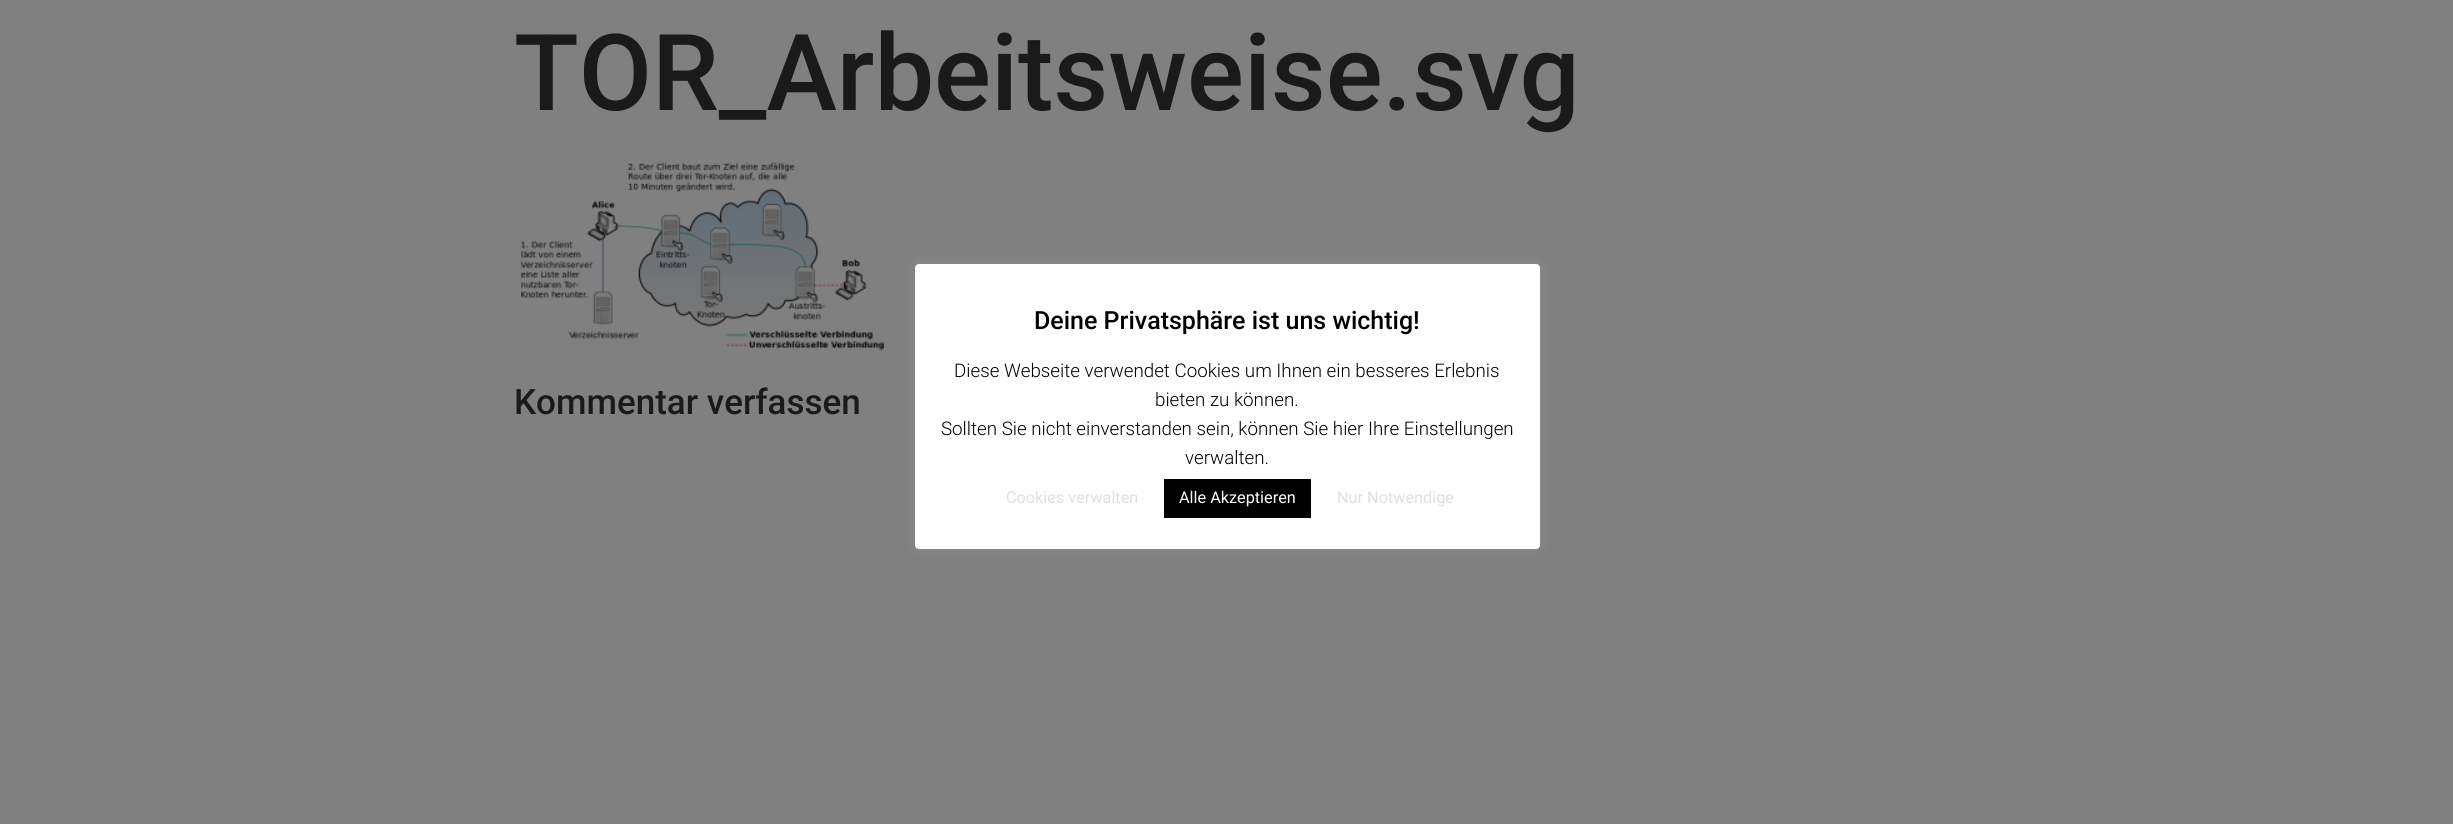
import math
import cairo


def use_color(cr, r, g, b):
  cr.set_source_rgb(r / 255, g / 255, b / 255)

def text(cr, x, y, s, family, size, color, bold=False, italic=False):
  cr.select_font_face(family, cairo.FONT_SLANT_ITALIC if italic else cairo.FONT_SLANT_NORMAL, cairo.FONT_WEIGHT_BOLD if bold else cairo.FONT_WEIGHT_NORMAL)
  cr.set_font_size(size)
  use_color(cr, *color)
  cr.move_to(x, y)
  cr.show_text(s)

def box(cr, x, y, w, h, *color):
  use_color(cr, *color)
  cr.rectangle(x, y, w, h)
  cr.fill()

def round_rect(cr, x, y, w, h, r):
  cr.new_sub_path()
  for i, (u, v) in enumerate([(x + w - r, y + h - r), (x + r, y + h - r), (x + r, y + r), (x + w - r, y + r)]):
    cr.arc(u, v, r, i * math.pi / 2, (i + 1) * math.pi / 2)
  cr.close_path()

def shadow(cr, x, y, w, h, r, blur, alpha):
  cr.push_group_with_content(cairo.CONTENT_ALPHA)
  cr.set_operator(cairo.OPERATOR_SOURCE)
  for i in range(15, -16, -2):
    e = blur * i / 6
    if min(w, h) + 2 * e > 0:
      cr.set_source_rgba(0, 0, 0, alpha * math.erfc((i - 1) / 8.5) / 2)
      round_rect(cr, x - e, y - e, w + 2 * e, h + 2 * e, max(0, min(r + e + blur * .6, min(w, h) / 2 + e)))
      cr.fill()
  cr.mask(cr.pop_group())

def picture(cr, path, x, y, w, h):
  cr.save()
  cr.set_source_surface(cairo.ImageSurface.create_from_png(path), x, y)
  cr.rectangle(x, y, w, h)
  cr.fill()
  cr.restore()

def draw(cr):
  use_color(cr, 128, 128, 128)
  cr.paint()
  picture(cr, "img_01.png", 520, 162, 364, 189)
  use_color(cr, 172, 171, 171)
  shadow(cr, 915, 263, 625, 285, 4, 6, 0.3)
  use_color(cr, 255, 255, 255)
  round_rect(cr, 915, 264, 625, 285, 4)
  cr.fill()
  box(cr, 1164, 479, 147, 39, 0, 0, 0)
  text(cr, 514, 110, "TOR_Arbeitsweise.svg", "Roboto Medium", 106.25, (26, 26, 26))
  text(cr, 514, 414, "Kommentar verfassen", "Roboto Medium", 35, (26, 26, 26))
  text(cr, 1034, 329, "Deine Privatsphäre ist uns wichtig!", "Roboto Medium", 25, (0, 0, 0))
  text(cr, 954, 377, "Diese Webseite verwendet Cookies um Ihnen ein besseres Erlebnis", "Roboto Light", 18.75, (0, 0, 0))
  text(cr, 1155, 406, "bieten zu können.", "Roboto Light", 18.75, (0, 0, 0))
  text(cr, 941, 435, "Sollten Sie nicht einverstanden sein, können Sie hier Ihre Einstellungen", "Roboto Light", 18.75, (0, 0, 0))
  text(cr, 1185, 464, "verwalten.", "Roboto Light", 18.75, (0, 0, 0))
  text(cr, 1006, 503, "Cookies verwalten", "Roboto", 16.25, (224, 224, 224))
  text(cr, 1179, 503, "Alle Akzeptieren", "Roboto", 16.25, (255, 255, 255))
  text(cr, 1337, 503, "Nur Notwendige", "Roboto", 16.25, (224, 224, 224))


surface = cairo.ImageSurface(cairo.FORMAT_RGB24, 2453, 824)
cr = cairo.Context(surface)
options = cairo.FontOptions()
options.set_hint_metrics(cairo.HINT_METRICS_OFF)
options.set_hint_style(cairo.HINT_STYLE_NONE)
cr.set_font_options(options)
cr.set_miter_limit(4)
draw(cr)
surface.write_to_png("out.png")
